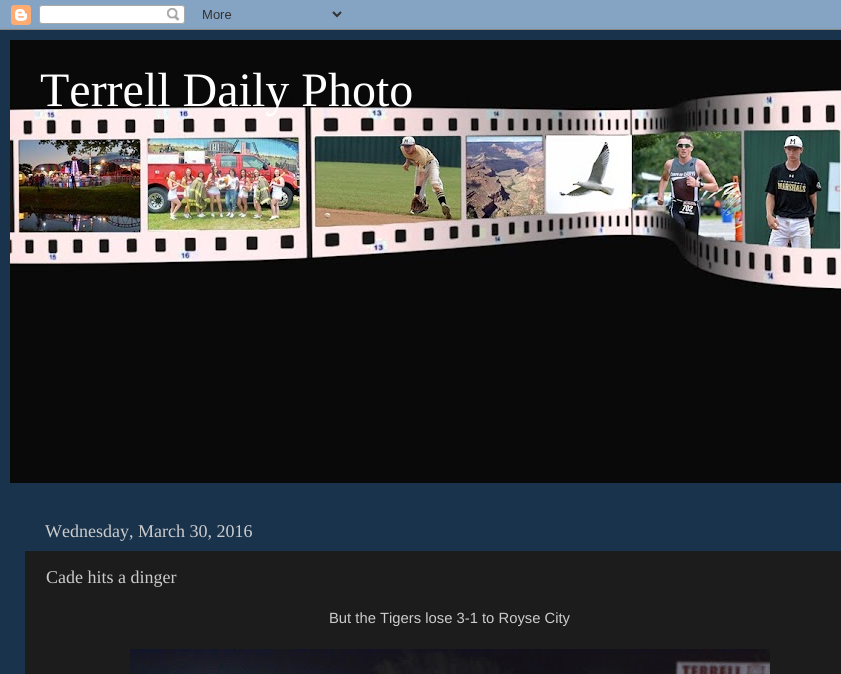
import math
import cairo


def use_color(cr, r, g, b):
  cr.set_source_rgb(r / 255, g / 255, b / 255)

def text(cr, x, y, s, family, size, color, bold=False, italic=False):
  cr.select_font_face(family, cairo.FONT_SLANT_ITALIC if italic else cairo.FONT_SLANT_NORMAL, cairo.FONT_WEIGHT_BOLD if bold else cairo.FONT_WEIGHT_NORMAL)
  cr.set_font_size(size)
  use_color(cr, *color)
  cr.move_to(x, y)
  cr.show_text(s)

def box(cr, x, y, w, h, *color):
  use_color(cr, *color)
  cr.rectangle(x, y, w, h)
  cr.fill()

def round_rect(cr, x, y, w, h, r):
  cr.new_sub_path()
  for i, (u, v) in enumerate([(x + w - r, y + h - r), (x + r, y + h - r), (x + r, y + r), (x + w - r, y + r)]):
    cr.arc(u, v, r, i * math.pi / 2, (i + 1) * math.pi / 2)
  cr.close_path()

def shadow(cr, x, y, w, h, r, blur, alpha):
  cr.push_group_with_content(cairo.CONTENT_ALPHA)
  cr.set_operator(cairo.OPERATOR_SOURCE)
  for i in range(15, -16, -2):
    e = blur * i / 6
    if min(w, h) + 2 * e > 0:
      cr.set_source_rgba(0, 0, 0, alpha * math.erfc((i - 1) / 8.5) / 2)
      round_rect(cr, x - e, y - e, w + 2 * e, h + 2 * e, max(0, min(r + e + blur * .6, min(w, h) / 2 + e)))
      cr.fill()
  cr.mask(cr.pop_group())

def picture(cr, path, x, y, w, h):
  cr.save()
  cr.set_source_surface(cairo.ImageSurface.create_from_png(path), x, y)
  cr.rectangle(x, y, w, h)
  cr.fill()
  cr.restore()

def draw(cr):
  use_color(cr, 51, 102, 153)
  cr.paint()
  use_color(cr, 0, 0, 0)
  shadow(cr, 0, 30, 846, 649, 0, 1.5, 0.15)
  picture(cr, "img_01.png", 0, 0, 841, 30)
  box(cr, 0, 30, 841, 644, 26, 51, 76)
  picture(cr, "img_02.png", 10, 40, 831, 443)
  box(cr, 25, 551, 816, 123, 28, 28, 28)
  picture(cr, "img_03.png", 130, 649, 640, 25)
  text(cr, 40, 106, "Terrell Daily Photo", "Liberation Serif", 48, (255, 255, 255))
  text(cr, 45, 537, "Wednesday, March 30, 2016", "Liberation Serif", 18, (204, 204, 204))
  text(cr, 46, 583, "Cade hits a dinger", "Liberation Serif", 18, (204, 204, 204))
  text(cr, 329, 623, "But the Tigers lose 3-1 to Royse City", "Liberation Sans", 14.8, (204, 204, 204))


surface = cairo.ImageSurface(cairo.FORMAT_RGB24, 841, 674)
cr = cairo.Context(surface)
options = cairo.FontOptions()
options.set_hint_metrics(cairo.HINT_METRICS_OFF)
options.set_hint_style(cairo.HINT_STYLE_NONE)
cr.set_font_options(options)
cr.set_miter_limit(4)
draw(cr)
surface.write_to_png("out.png")
